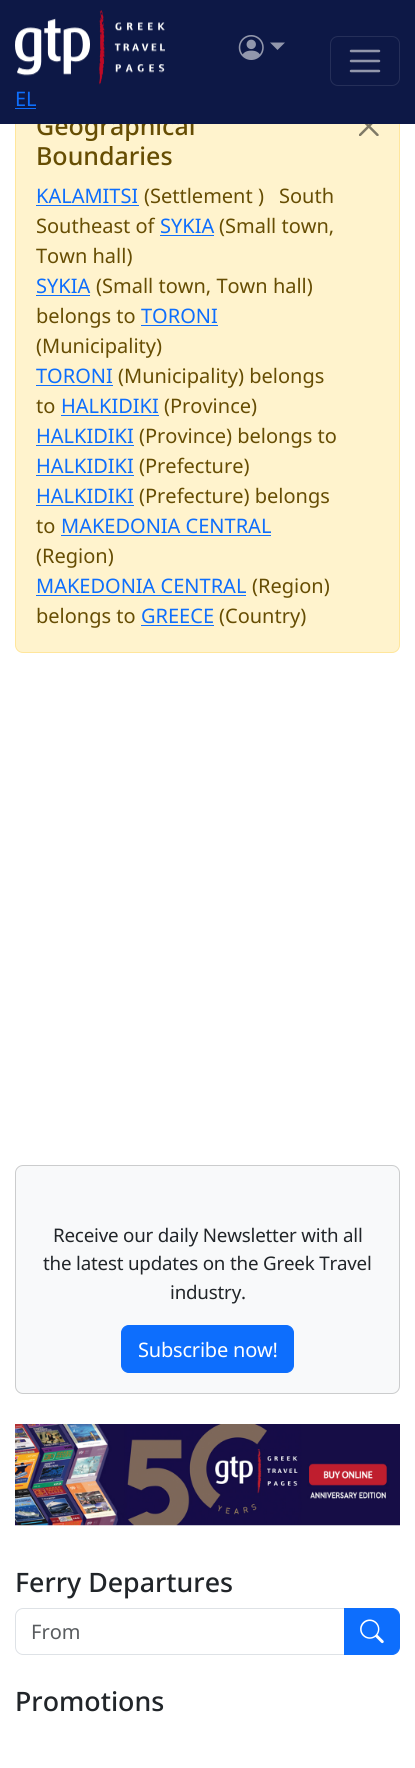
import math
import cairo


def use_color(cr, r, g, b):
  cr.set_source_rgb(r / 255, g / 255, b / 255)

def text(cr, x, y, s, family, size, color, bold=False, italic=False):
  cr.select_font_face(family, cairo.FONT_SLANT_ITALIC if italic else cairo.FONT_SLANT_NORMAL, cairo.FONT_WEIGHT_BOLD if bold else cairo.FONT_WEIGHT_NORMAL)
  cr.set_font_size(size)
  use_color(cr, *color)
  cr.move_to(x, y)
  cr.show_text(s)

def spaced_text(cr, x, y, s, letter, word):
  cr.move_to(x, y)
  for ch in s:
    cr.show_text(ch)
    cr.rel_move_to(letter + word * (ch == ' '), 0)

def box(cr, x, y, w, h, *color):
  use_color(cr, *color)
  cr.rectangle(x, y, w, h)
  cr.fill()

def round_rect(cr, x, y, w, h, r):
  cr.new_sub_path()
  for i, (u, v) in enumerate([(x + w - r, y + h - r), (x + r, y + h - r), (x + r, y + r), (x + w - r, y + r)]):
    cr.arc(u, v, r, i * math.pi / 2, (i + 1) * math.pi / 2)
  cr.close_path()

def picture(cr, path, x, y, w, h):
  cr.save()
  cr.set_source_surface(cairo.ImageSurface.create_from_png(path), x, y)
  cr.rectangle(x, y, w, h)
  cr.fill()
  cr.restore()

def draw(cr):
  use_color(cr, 255, 255, 255)
  cr.paint()
  use_color(cr, 255, 243, 205)
  round_rect(cr, 15.5, 90.5, 384, 562, 7.5)
  cr.fill_preserve()
  use_color(cr, 255, 230, 156)
  cr.set_line_width(1)
  cr.stroke()
  picture(cr, "img_03.png", 359, 124, 20, 12)
  box(cr, 36, 205, 103, 1, 13, 110, 253)
  box(cr, 160, 235, 54, 1, 13, 110, 253)
  box(cr, 36, 295, 54, 1, 13, 110, 253)
  box(cr, 141, 325, 77, 1, 13, 110, 253)
  box(cr, 36, 385, 77, 1, 13, 110, 253)
  box(cr, 61, 415, 98, 1, 13, 110, 253)
  box(cr, 36, 445, 98, 1, 13, 110, 253)
  box(cr, 36, 475, 98, 1, 13, 110, 253)
  box(cr, 36, 505, 98, 1, 13, 110, 253)
  box(cr, 61, 535, 210, 1, 13, 110, 253)
  box(cr, 36, 595, 210, 1, 13, 110, 253)
  box(cr, 141, 625, 73, 1, 13, 110, 253)
  use_color(cr, 248, 249, 250)
  round_rect(cr, 15, 1165, 385, 229, 8)
  cr.fill()
  round_rect(cr, 15.5, 1165.5, 384, 228, 7.5)
  cr.set_source_rgba(0, 0, 0, 0.18)
  cr.stroke()
  use_color(cr, 13, 110, 253)
  round_rect(cr, 121.5, 1325.5, 172, 47, 7.5)
  cr.fill_preserve()
  cr.stroke()
  picture(cr, "img_04.png", 15, 1424, 385, 102)
  cr.new_path()
  cr.move_to(23, 1608.5)
  cr.line_to(344.5, 1608.5)
  cr.line_to(344.5, 1654.5)
  cr.line_to(23, 1654.5)
  cr.curve_to(19, 1654.5, 15.5, 1651, 15.5, 1647)
  cr.line_to(15.5, 1616)
  cr.curve_to(15.5, 1612, 19, 1608.5, 23, 1608.5)
  cr.close_path()
  use_color(cr, 222, 226, 230)
  cr.stroke()
  use_color(cr, 13, 110, 253)
  cr.new_path()
  cr.move_to(344.5, 1608.5)
  cr.line_to(392, 1608.5)
  cr.curve_to(396, 1608.5, 399.5, 1612, 399.5, 1616)
  cr.line_to(399.5, 1647)
  cr.curve_to(399.5, 1651, 396, 1654.5, 392, 1654.5)
  cr.line_to(344.5, 1654.5)
  cr.close_path()
  cr.fill_preserve()
  cr.stroke()
  picture(cr, "img_05.png", 360, 1619, 24, 25)
  text(cr, 36, 135, "Geographical", "Noto Sans Medium", 25, (102, 77, 3))
  box(cr, 0, 0, 415, 124, 13, 24, 70)
  use_color(cr, 146, 151, 172)
  cr.new_path()
  cr.move_to(270, 42.5)
  cr.line_to(285, 42.5)
  cr.line_to(277.5, 50)
  cr.close_path()
  cr.fill()
  picture(cr, "img_01.png", 238, 35, 26, 25)
  round_rect(cr, 330.5, 36.5, 69, 49, 7.5)
  use_color(cr, 37, 47, 89)
  cr.stroke()
  cr.new_path()
  cr.move_to(351, 51)
  cr.line_to(379, 51)
  cr.move_to(351, 61)
  cr.line_to(379, 61)
  cr.move_to(351, 71)
  cr.line_to(379, 71)
  use_color(cr, 146, 151, 172)
  cr.set_line_width(2.5)
  cr.set_line_cap(cairo.LINE_CAP_ROUND)
  cr.stroke()
  text(cr, 15, 106, "EL", "Noto Sans", 20, (13, 110, 253))
  box(cr, 15, 108, 21, 1, 13, 110, 253)
  picture(cr, "img_02.png", 15, 10, 150, 75)
  text(cr, 36, 165, "Boundaries", "Noto Sans Medium", 25, (102, 77, 3))
  text(cr, 36, 203, "KALAMITSI", "Noto Sans", 20, (13, 110, 253))
  text(cr, 144, 203, "(Settlement )", "Noto Sans", 20, (102, 77, 3))
  text(cr, 279, 203, "South", "Noto Sans", 20, (102, 77, 3))
  text(cr, 36, 233, "Southeast of", "Noto Sans", 20, (102, 77, 3))
  text(cr, 160, 233, "SYKIA", "Noto Sans", 20, (13, 110, 253))
  text(cr, 219, 233, "(Small town,", "Noto Sans", 20, (102, 77, 3))
  text(cr, 36, 263, "Town hall)", "Noto Sans", 20, (102, 77, 3))
  text(cr, 36, 293, "SYKIA", "Noto Sans", 20, (13, 110, 253))
  text(cr, 96, 293, "(Small town, Town hall)", "Noto Sans", 20, (102, 77, 3))
  text(cr, 36, 323, "belongs to", "Noto Sans", 20, (102, 77, 3))
  text(cr, 141, 323, "TORONI", "Noto Sans", 20, (13, 110, 253))
  text(cr, 36, 353, "(Municipality)", "Noto Sans", 20, (102, 77, 3))
  text(cr, 36, 383, "TORONI", "Noto Sans", 20, (13, 110, 253))
  text(cr, 118, 383, "(Municipality) belongs", "Noto Sans", 20, (102, 77, 3))
  text(cr, 36, 413, "to", "Noto Sans", 20, (102, 77, 3))
  text(cr, 61, 413, "HALKIDIKI", "Noto Sans", 20, (13, 110, 253))
  text(cr, 164, 413, "(Province)", "Noto Sans", 20, (102, 77, 3))
  text(cr, 36, 443, "HALKIDIKI", "Noto Sans", 20, (13, 110, 253))
  text(cr, 139, 443, "(Province) belongs to", "Noto Sans", 20, (102, 77, 3))
  text(cr, 36, 473, "HALKIDIKI", "Noto Sans", 20, (13, 110, 253))
  text(cr, 139, 473, "(Prefecture)", "Noto Sans", 20, (102, 77, 3))
  text(cr, 36, 503, "HALKIDIKI", "Noto Sans", 20, (13, 110, 253))
  text(cr, 139, 503, "(Prefecture) belongs", "Noto Sans", 20, (102, 77, 3))
  text(cr, 36, 533, "to", "Noto Sans", 20, (102, 77, 3))
  text(cr, 61, 533, "MAKEDONIA CENTRAL", "Noto Sans", 20, (13, 110, 253))
  text(cr, 36, 563, "(Region)", "Noto Sans", 20, (102, 77, 3))
  text(cr, 36, 593, "MAKEDONIA CENTRAL", "Noto Sans", 20, (13, 110, 253))
  text(cr, 252, 593, "(Region)", "Noto Sans", 20, (102, 77, 3))
  text(cr, 36, 623, "belongs to", "Noto Sans", 20, (102, 77, 3))
  text(cr, 141, 623, "GREECE", "Noto Sans", 20, (13, 110, 253))
  text(cr, 219, 623, "(Country)", "Noto Sans", 20, (102, 77, 3))
  cr.set_font_size(18.75)
  use_color(cr, 33, 37, 41)
  spaced_text(cr, 53, 1242, "Receive our daily Newsletter with all", -0.2, 0)
  spaced_text(cr, 43, 1270, "the latest updates on the Greek Travel", -0.2, 0)
  spaced_text(cr, 170, 1299, "industry.", -0.2, 0)
  cr.set_font_size(20)
  use_color(cr, 255, 255, 255)
  spaced_text(cr, 138, 1357, "Subscribe now!", -0.2, 0)
  text(cr, 15, 1592, "Ferry Departures", "Noto Sans Medium", 26.75, (33, 37, 41))
  text(cr, 31, 1639, "From", "Noto Sans", 20, (89, 92, 95))
  text(cr, 15, 1711, "Promotions", "Noto Sans Medium", 26.75, (33, 37, 41))


surface = cairo.ImageSurface(cairo.FORMAT_RGB24, 415, 1768)
cr = cairo.Context(surface)
options = cairo.FontOptions()
options.set_hint_metrics(cairo.HINT_METRICS_OFF)
options.set_hint_style(cairo.HINT_STYLE_NONE)
cr.set_font_options(options)
cr.set_miter_limit(4)
draw(cr)
surface.write_to_png("out.png")
